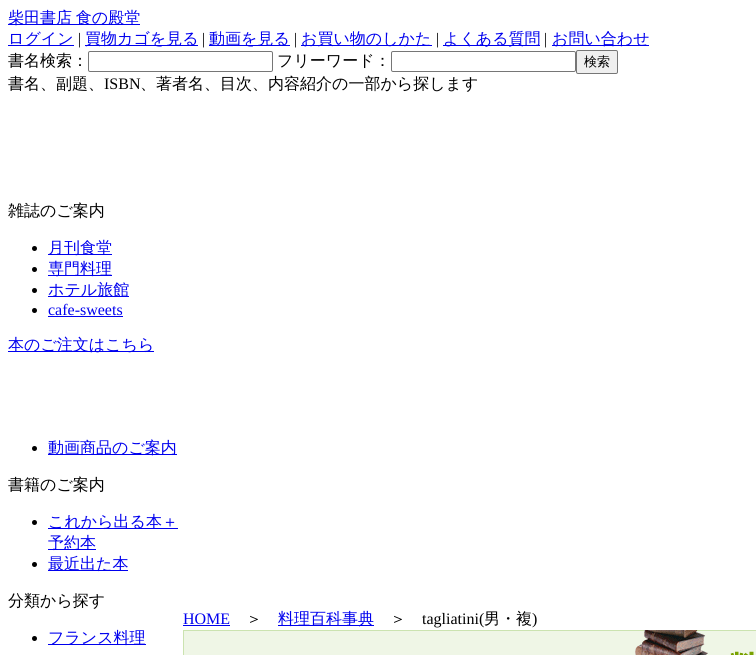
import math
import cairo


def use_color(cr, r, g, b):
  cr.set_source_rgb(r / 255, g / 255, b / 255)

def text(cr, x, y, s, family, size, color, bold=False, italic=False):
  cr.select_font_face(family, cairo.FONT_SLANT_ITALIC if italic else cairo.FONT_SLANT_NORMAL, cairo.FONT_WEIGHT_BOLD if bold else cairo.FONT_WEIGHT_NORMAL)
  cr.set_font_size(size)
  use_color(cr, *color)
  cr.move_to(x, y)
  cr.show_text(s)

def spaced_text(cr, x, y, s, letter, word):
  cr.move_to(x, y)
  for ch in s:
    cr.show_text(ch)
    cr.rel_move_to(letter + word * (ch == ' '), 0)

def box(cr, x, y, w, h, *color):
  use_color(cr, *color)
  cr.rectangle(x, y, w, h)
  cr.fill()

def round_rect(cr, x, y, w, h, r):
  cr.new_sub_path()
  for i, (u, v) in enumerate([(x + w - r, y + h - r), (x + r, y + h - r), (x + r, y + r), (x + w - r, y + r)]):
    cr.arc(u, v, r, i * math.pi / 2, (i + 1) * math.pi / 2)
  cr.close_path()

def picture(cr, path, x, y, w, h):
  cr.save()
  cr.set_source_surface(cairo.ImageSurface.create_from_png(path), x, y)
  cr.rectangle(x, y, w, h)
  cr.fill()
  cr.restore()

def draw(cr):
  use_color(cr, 255, 255, 255)
  cr.paint()
  box(cr, 8, 24, 132, 1, 0, 0, 238)
  box(cr, 8, 45, 66, 1, 0, 0, 238)
  box(cr, 85, 45, 113, 1, 0, 0, 238)
  box(cr, 209, 45, 81, 1, 0, 0, 238)
  box(cr, 301, 45, 131, 1, 0, 0, 238)
  box(cr, 443, 45, 97, 1, 0, 0, 238)
  box(cr, 552, 45, 97, 1, 0, 0, 238)
  round_rect(cr, 88.5, 51.5, 184, 20, 1.5)
  use_color(cr, 118, 118, 118)
  cr.set_line_width(1)
  cr.stroke()
  round_rect(cr, 391.5, 51.5, 184, 20, 1.5)
  cr.stroke()
  use_color(cr, 239, 239, 239)
  round_rect(cr, 576.5, 50.5, 41, 23, 1.5)
  cr.fill_preserve()
  use_color(cr, 118, 118, 118)
  cr.stroke()
  use_color(cr, 0, 0, 0)
  cr.arc(34.5, 248.5, 2.5, 0, 2 * math.pi)
  cr.fill()
  box(cr, 48, 254, 64, 1, 0, 0, 238)
  use_color(cr, 0, 0, 0)
  cr.arc(34.5, 269.5, 2.5, 0, 2 * math.pi)
  cr.fill()
  box(cr, 48, 275, 64, 1, 0, 0, 238)
  use_color(cr, 0, 0, 0)
  cr.arc(34.5, 290.5, 2.5, 0, 2 * math.pi)
  cr.fill()
  box(cr, 48, 296, 81, 1, 0, 0, 238)
  use_color(cr, 0, 0, 0)
  cr.arc(34.5, 310.5, 2.5, 0, 2 * math.pi)
  cr.fill()
  box(cr, 48, 316, 75, 1, 0, 0, 238)
  box(cr, 8, 351, 146, 1, 0, 0, 238)
  use_color(cr, 0, 0, 0)
  cr.arc(34.5, 448.5, 2.5, 0, 2 * math.pi)
  cr.fill()
  box(cr, 48, 454, 129, 1, 0, 0, 238)
  use_color(cr, 0, 0, 0)
  cr.arc(34.5, 522.5, 2.5, 0, 2 * math.pi)
  cr.fill()
  box(cr, 48, 528, 130, 1, 0, 0, 238)
  box(cr, 48, 549, 48, 1, 0, 0, 238)
  use_color(cr, 0, 0, 0)
  cr.arc(34.5, 564.5, 2.5, 0, 2 * math.pi)
  cr.fill()
  box(cr, 48, 570, 80, 1, 0, 0, 238)
  use_color(cr, 0, 0, 0)
  cr.arc(34.5, 638.5, 2.5, 0, 2 * math.pi)
  cr.fill()
  box(cr, 48, 644, 98, 1, 0, 0, 238)
  box(cr, 183, 625, 47, 1, 0, 0, 238)
  box(cr, 278, 625, 96, 1, 0, 0, 238)
  picture(cr, "img_01.png", 183, 630, 573, 25)
  cr.select_font_face("WenQuanYi Zen Hei Medium")
  cr.set_font_size(16)
  spaced_text(cr, 8, 23, "柴田書店 食の殿堂", 0, -1)
  text(cr, 8, 44, "ログイン", "WenQuanYi Zen Hei Medium", 16, (0, 0, 238))
  text(cr, 78, 44, "|", "Liberation Serif", 16, (0, 0, 0))
  text(cr, 85, 44, "買物カゴを見る", "WenQuanYi Zen Hei Medium", 16, (0, 0, 238))
  text(cr, 202, 44, "|", "Liberation Serif", 16, (0, 0, 0))
  text(cr, 209, 44, "動画を見る", "WenQuanYi Zen Hei Medium", 16, (0, 0, 238))
  text(cr, 294, 44, "|", "Liberation Serif", 16, (0, 0, 0))
  text(cr, 301, 44, "お買い物のしかた", "WenQuanYi Zen Hei Medium", 16, (0, 0, 238))
  text(cr, 436, 44, "|", "Liberation Serif", 16, (0, 0, 0))
  text(cr, 443, 44, "よくある質問", "WenQuanYi Zen Hei Medium", 16, (0, 0, 238))
  text(cr, 544, 44, "|", "Liberation Serif", 16, (0, 0, 0))
  text(cr, 552, 44, "お問い合わせ", "WenQuanYi Zen Hei Medium", 16, (0, 0, 238))
  text(cr, 8, 66, "書名検索：", "WenQuanYi Zen Hei Medium", 16, (0, 0, 0))
  text(cr, 277, 66, "フリーワード：", "WenQuanYi Zen Hei Medium", 16, (0, 0, 0))
  text(cr, 584, 66, "検索", "WenQuanYi Zen Hei Medium", 13, (0, 0, 0))
  text(cr, 8, 89, "書名、副題、", "WenQuanYi Zen Hei Medium", 16, (0, 0, 0))
  text(cr, 104, 89, "ISBN", "Liberation Serif", 16, (0, 0, 0))
  text(cr, 140, 89, "、著者名、目次、内容紹介の一部から探します", "WenQuanYi Zen Hei Medium", 16, (0, 0, 0))
  text(cr, 8, 216, "雑誌のご案内", "WenQuanYi Zen Hei Medium", 16, (0, 0, 0))
  text(cr, 48, 253, "月刊食堂", "WenQuanYi Zen Hei Medium", 16, (0, 0, 238))
  text(cr, 48, 274, "専門料理", "WenQuanYi Zen Hei Medium", 16, (0, 0, 238))
  text(cr, 48, 295, "ホテル旅館", "WenQuanYi Zen Hei Medium", 16, (0, 0, 238))
  text(cr, 48, 315, "cafe-sweets", "Liberation Serif", 16, (0, 0, 238))
  text(cr, 8, 350, "本のご注文はこちら", "WenQuanYi Zen Hei Medium", 16, (0, 0, 238))
  text(cr, 48, 453, "動画商品のご案内", "WenQuanYi Zen Hei Medium", 16, (0, 0, 238))
  text(cr, 8, 490, "書籍のご案内", "WenQuanYi Zen Hei Medium", 16, (0, 0, 0))
  text(cr, 48, 527, "これから出る本＋", "WenQuanYi Zen Hei Medium", 16, (0, 0, 238))
  text(cr, 48, 548, "予約本", "WenQuanYi Zen Hei Medium", 16, (0, 0, 238))
  text(cr, 48, 569, "最近出た本", "WenQuanYi Zen Hei Medium", 16, (0, 0, 238))
  text(cr, 8, 606, "分類から探す", "WenQuanYi Zen Hei Medium", 16, (0, 0, 0))
  text(cr, 48, 643, "フランス料理", "WenQuanYi Zen Hei Medium", 16, (0, 0, 238))
  text(cr, 183, 624, "HOME", "Liberation Serif", 16, (0, 0, 238))
  text(cr, 246, 624, "＞", "WenQuanYi Zen Hei Medium", 16, (0, 0, 0))
  text(cr, 278, 624, "料理百科事典", "WenQuanYi Zen Hei Medium", 16, (0, 0, 238))
  text(cr, 390, 624, "＞", "WenQuanYi Zen Hei Medium", 16, (0, 0, 0))
  text(cr, 422, 624, "tagliatini(", "Liberation Serif", 16, (0, 0, 0))
  text(cr, 484, 624, "男・複", "WenQuanYi Zen Hei Medium", 16, (0, 0, 0))
  text(cr, 532, 624, ")", "Liberation Serif", 16, (0, 0, 0))


surface = cairo.ImageSurface(cairo.FORMAT_RGB24, 756, 655)
cr = cairo.Context(surface)
options = cairo.FontOptions()
options.set_hint_metrics(cairo.HINT_METRICS_OFF)
options.set_hint_style(cairo.HINT_STYLE_NONE)
cr.set_font_options(options)
cr.set_miter_limit(4)
draw(cr)
surface.write_to_png("out.png")
